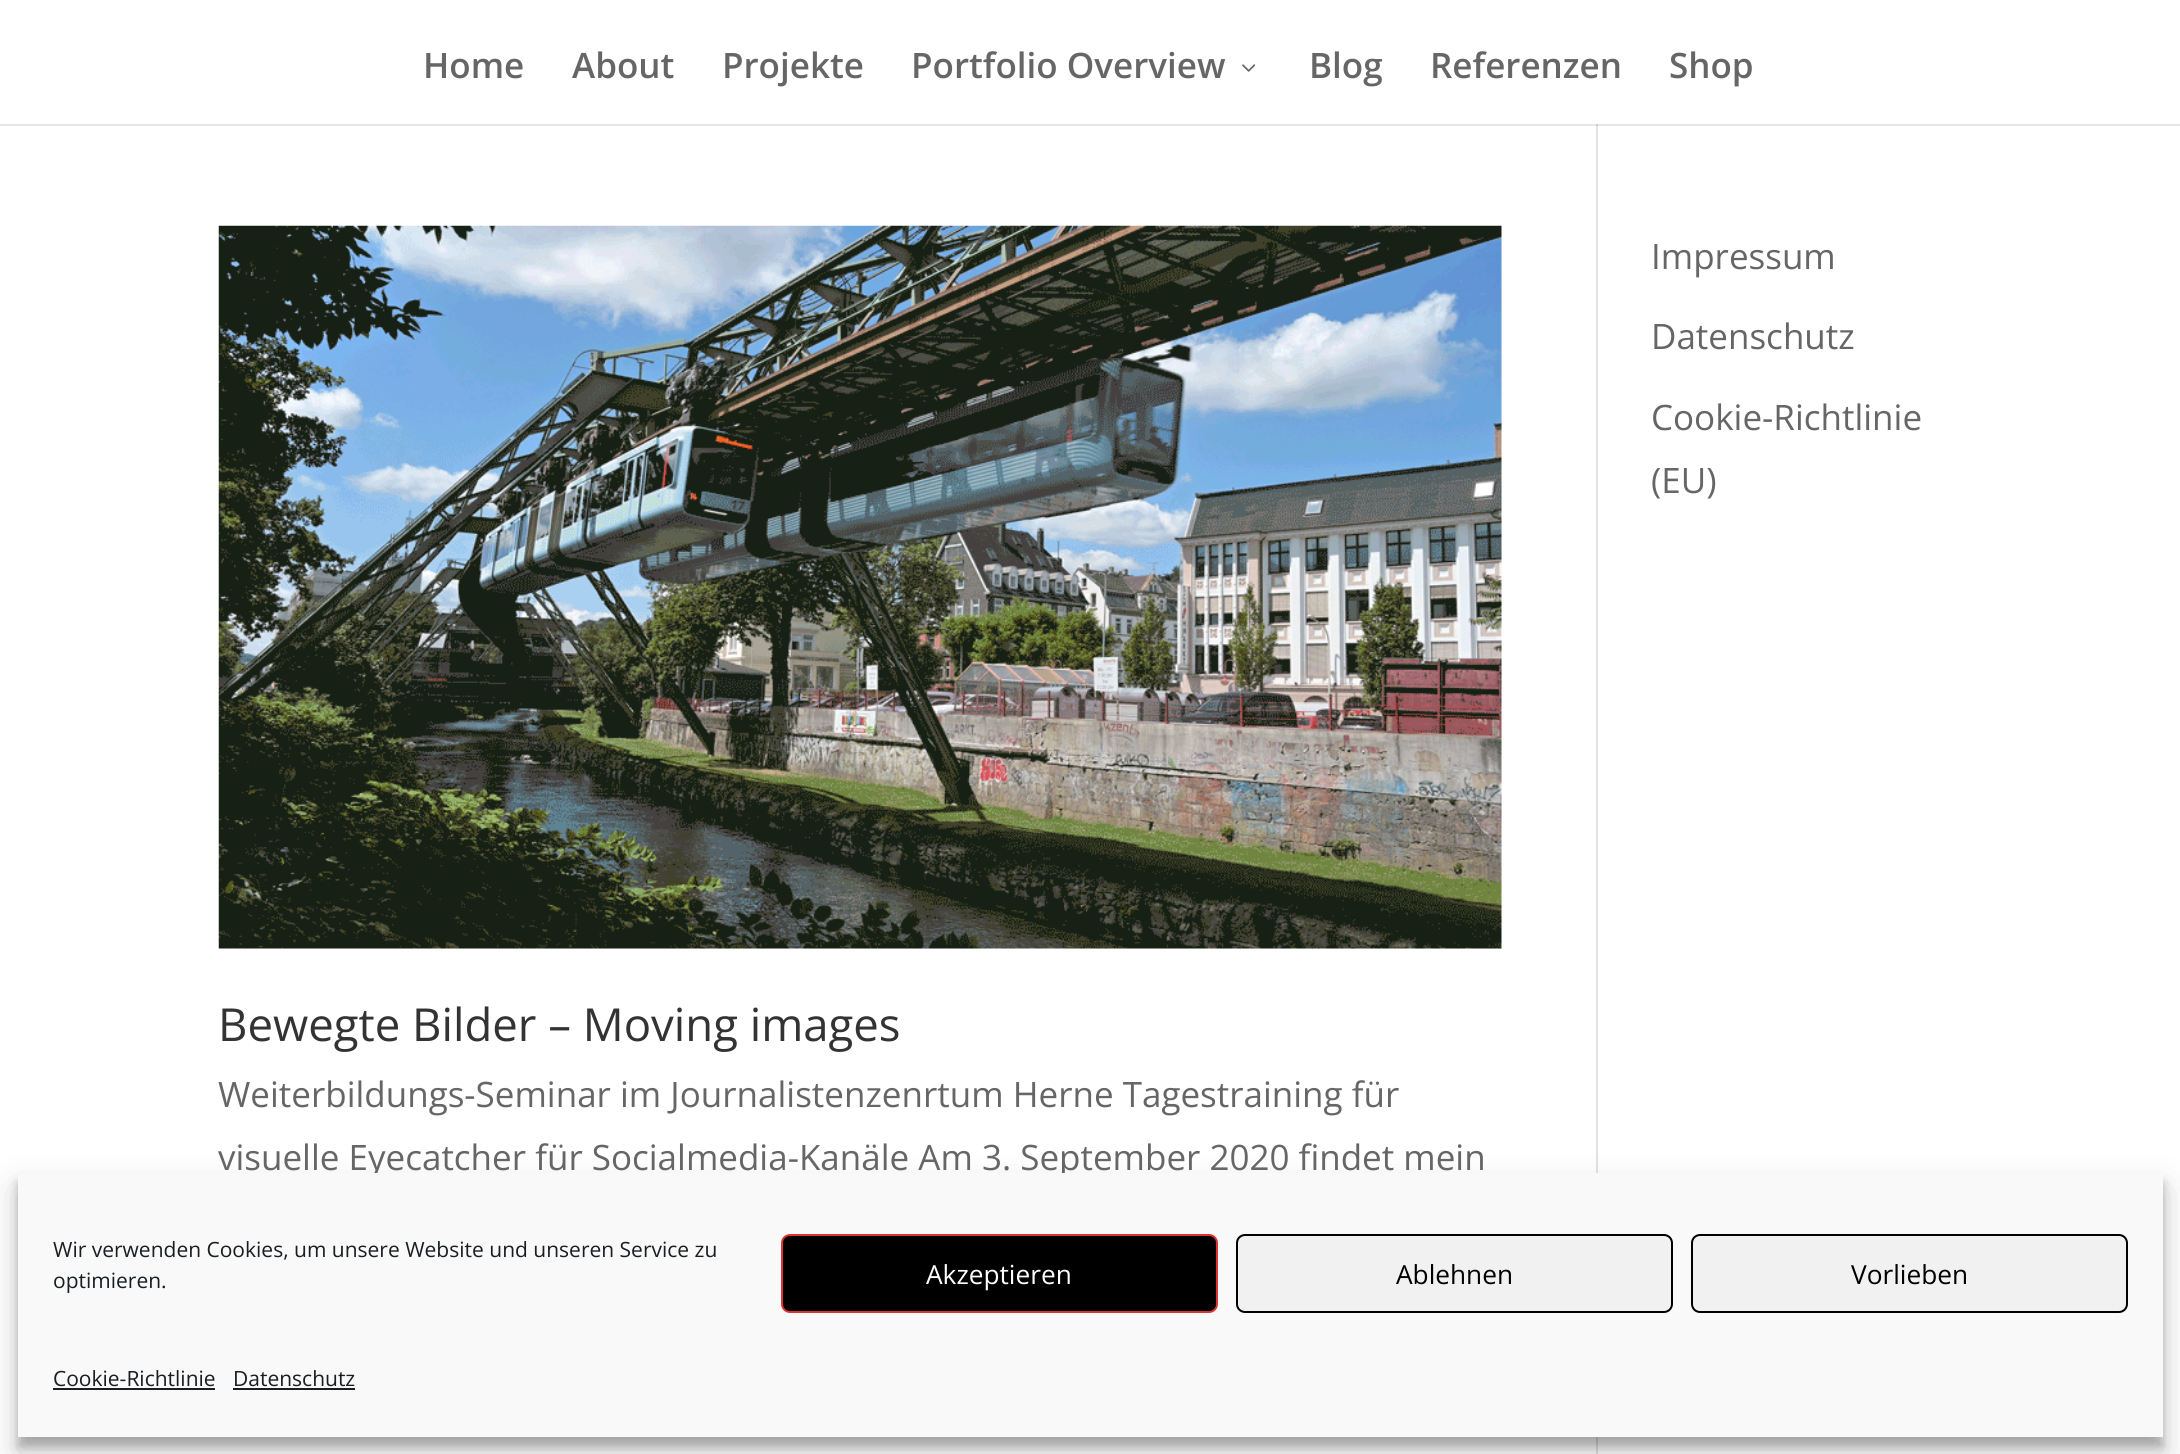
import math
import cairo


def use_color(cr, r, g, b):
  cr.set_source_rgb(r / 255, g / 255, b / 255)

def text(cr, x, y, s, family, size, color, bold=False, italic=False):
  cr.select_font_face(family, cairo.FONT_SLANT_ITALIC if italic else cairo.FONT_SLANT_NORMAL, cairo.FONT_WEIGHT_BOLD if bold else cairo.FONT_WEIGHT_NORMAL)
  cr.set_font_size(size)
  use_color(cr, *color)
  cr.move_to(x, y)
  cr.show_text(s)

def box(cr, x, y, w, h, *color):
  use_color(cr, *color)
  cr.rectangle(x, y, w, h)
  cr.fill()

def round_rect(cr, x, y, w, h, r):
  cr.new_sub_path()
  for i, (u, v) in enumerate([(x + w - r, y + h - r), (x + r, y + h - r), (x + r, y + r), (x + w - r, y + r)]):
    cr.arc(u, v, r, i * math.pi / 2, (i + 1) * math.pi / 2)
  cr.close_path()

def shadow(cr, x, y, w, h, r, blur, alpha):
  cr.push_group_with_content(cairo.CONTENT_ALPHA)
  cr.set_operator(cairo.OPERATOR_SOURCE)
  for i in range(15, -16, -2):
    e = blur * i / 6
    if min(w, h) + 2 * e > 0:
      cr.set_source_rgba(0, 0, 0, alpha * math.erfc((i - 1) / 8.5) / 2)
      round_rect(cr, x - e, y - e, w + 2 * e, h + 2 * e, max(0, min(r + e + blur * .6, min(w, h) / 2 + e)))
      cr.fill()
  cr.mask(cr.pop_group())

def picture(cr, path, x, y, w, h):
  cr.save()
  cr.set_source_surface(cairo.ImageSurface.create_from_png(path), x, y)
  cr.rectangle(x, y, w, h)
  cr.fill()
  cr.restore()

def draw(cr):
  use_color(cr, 255, 255, 255)
  cr.paint()
  box(cr, 1596, 124, 2, 1330, 226, 226, 226)
  cr.set_source_rgba(0, 0, 0, 0.1)
  cr.new_path()
  cr.move_to(0, 124)
  cr.line_to(0, 126)
  cr.line_to(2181, 126)
  cr.line_to(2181, 2)
  cr.line_to(2180, 2)
  cr.line_to(2180, 124)
  cr.close_path()
  cr.fill()
  picture(cr, "img_01.png", 1242, 64, 14, 8)
  picture(cr, "img_02.png", 218, 225, 1284, 724)
  use_color(cr, 0, 0, 0)
  shadow(cr, 18, 1183, 2145, 264, 0, 5, 0.23)
  shadow(cr, 18, 1190, 2145, 264, 0, 17.5, 0.19)
  text(cr, 423, 78, "Home", "Open Sans SemiBold", 35, (102, 102, 102))
  text(cr, 572, 78, "About", "Open Sans SemiBold", 35, (102, 102, 102))
  text(cr, 722, 78, "Projekte", "Open Sans SemiBold", 35, (102, 102, 102))
  text(cr, 911, 78, "Portfolio Overview", "Open Sans SemiBold", 35, (102, 102, 102))
  text(cr, 1309, 78, "Blog", "Open Sans SemiBold", 35, (102, 102, 102))
  text(cr, 1430, 78, "Referenzen", "Open Sans SemiBold", 35, (102, 102, 102))
  text(cr, 1669, 78, "Shop", "Open Sans SemiBold", 35, (102, 102, 102))
  text(cr, 1651, 269, "Impressum", "Open Sans", 35, (102, 102, 102))
  text(cr, 1651, 349, "Datenschutz", "Open Sans", 35, (102, 102, 102))
  text(cr, 1651, 430, "Cookie-Richtlinie", "Open Sans", 35, (102, 102, 102))
  text(cr, 1651, 493, "(EU)", "Open Sans", 35, (102, 102, 102))
  text(cr, 218, 1041, "Bewegte Bilder – Moving images", "Open Sans", 45.5, (51, 51, 51))
  text(cr, 218, 1107, "Weiterbildungs-Seminar im Journalistenzenrtum Herne Tagestraining für", "Open Sans", 35, (102, 102, 102))
  text(cr, 218, 1170, "visuelle Eyecatcher für Socialmedia-Kanäle Am 3. September 2020 findet mein", "Open Sans", 35, (102, 102, 102))
  box(cr, 18, 1173, 2145, 264, 249, 249, 249)
  text(cr, 53, 1257, "Wir verwenden Cookies, um unsere Website und unseren Service zu", "Open Sans", 21, (25, 30, 35))
  text(cr, 53, 1288, "optimieren.", "Open Sans", 21, (25, 30, 35))
  use_color(cr, 0, 0, 0)
  round_rect(cr, 782, 1235, 435, 77, 8)
  cr.fill_preserve()
  use_color(cr, 221, 51, 51)
  cr.stroke()
  text(cr, 926, 1284, "Akzeptieren", "Open Sans", 26.25, (255, 255, 255))
  use_color(cr, 241, 241, 241)
  round_rect(cr, 1237, 1235, 435, 77, 8)
  cr.fill_preserve()
  use_color(cr, 0, 0, 0)
  cr.stroke()
  text(cr, 1396, 1284, "Ablehnen", "Open Sans", 26.25, (0, 0, 0))
  use_color(cr, 241, 241, 241)
  round_rect(cr, 1692, 1235, 435, 77, 8)
  cr.fill_preserve()
  use_color(cr, 0, 0, 0)
  cr.stroke()
  text(cr, 1851, 1284, "Vorlieben", "Open Sans", 26.25, (0, 0, 0))
  text(cr, 53, 1386, "Cookie-Richtlinie", "Open Sans", 21, (25, 30, 35))
  box(cr, 53, 1388, 162, 2, 25, 30, 35)
  text(cr, 233, 1386, "Datenschutz", "Open Sans", 21, (25, 30, 35))
  box(cr, 233, 1388, 122, 2, 25, 30, 35)


surface = cairo.ImageSurface(cairo.FORMAT_RGB24, 2180, 1454)
cr = cairo.Context(surface)
options = cairo.FontOptions()
options.set_hint_metrics(cairo.HINT_METRICS_OFF)
options.set_hint_style(cairo.HINT_STYLE_NONE)
cr.set_font_options(options)
cr.set_miter_limit(4)
draw(cr)
surface.write_to_png("out.png")
